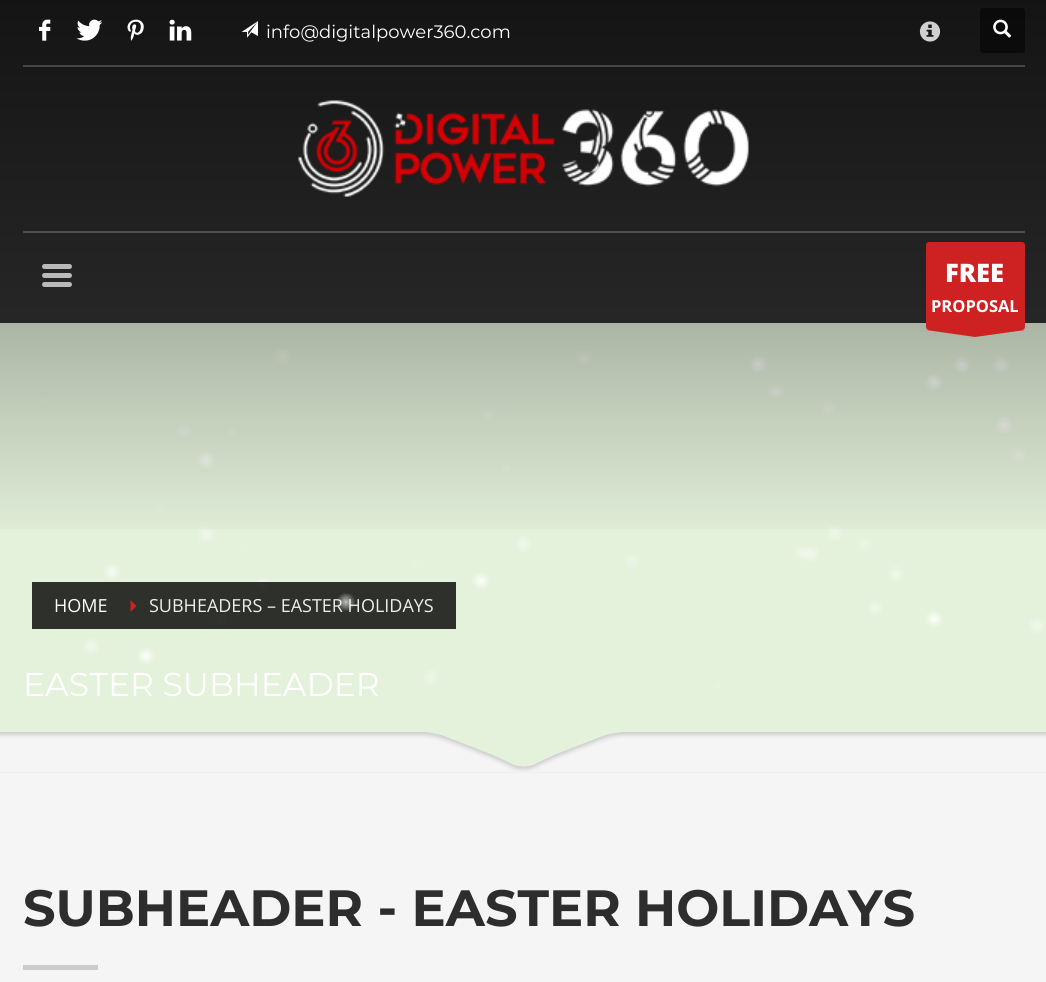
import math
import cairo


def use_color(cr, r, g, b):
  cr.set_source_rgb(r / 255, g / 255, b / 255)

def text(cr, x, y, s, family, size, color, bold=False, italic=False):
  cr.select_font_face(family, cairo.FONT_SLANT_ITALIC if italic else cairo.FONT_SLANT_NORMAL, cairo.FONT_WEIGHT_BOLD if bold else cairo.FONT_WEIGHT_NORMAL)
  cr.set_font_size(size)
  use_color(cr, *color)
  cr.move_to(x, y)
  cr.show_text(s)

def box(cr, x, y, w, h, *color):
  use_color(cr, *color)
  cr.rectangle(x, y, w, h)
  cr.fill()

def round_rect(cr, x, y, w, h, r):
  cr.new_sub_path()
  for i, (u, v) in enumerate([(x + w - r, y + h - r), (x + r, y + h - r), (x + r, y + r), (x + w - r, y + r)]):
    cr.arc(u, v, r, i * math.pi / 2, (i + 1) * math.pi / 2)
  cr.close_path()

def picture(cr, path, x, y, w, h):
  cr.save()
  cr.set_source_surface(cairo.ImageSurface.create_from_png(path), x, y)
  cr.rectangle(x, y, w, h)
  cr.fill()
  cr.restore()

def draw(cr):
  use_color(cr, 245, 245, 245)
  cr.paint()
  box(cr, 0, 0, 1046, 323, 51, 51, 51)
  box(cr, 0, 323, 1046, 450, 228, 241, 219)
  gradient = cairo.RadialGradient(283, 356, 0, 283, 356, 16)
  gradient.add_color_stop_rgba(0, 0.937, 0.969, 0.914, 1)
  gradient.add_color_stop_rgba(0.6, 0.894, 0.945, 0.859, 1)
  cr.set_source(gradient)
  cr.rectangle(275, 348, 16, 16)
  cr.fill()
  gradient = cairo.RadialGradient(584, 358, 0, 584, 358, 16)
  gradient.add_color_stop_rgba(0, 0.937, 0.969, 0.914, 1)
  gradient.add_color_stop_rgba(0.6, 0.894, 0.945, 0.859, 1)
  cr.set_source(gradient)
  cr.rectangle(576, 350, 16, 16)
  cr.fill()
  gradient = cairo.RadialGradient(758, 364, 0, 758, 364, 16)
  gradient.add_color_stop_rgba(0, 0.988, 0.996, 0.984, 1)
  gradient.add_color_stop_rgba(0.6, 0.894, 0.945, 0.859, 1)
  cr.set_source(gradient)
  cr.rectangle(749, 355, 18, 18)
  cr.fill()
  gradient = cairo.RadialGradient(962, 365, 0, 962, 365, 16)
  gradient.add_color_stop_rgba(0, 0.988, 0.996, 0.984, 1)
  gradient.add_color_stop_rgba(0.6, 0.894, 0.945, 0.859, 1)
  cr.set_source(gradient)
  cr.rectangle(953, 356, 18, 18)
  cr.fill()
  gradient = cairo.RadialGradient(1001, 365, 0, 1001, 365, 16)
  gradient.add_color_stop_rgba(0, 0.969, 0.984, 0.957, 1)
  gradient.add_color_stop_rgba(0.6, 0.894, 0.945, 0.859, 1)
  cr.set_source(gradient)
  cr.rectangle(992, 356, 18, 18)
  cr.fill()
  gradient = cairo.RadialGradient(776, 391, 0, 776, 391, 16)
  gradient.add_color_stop_rgba(0, 0.949, 0.973, 0.929, 1)
  gradient.add_color_stop_rgba(0.6, 0.894, 0.945, 0.859, 1)
  cr.set_source(gradient)
  cr.rectangle(768, 383, 16, 16)
  cr.fill()
  gradient = cairo.RadialGradient(934, 382, 0, 934, 382, 16)
  gradient.add_color_stop_rgba(0, 0.988, 0.996, 0.984, 1)
  gradient.add_color_stop_rgba(0.6, 0.894, 0.945, 0.859, 1)
  cr.set_source(gradient)
  cr.rectangle(925, 373, 18, 18)
  cr.fill()
  gradient = cairo.RadialGradient(44, 400, 0, 44, 400, 16)
  gradient.add_color_stop_rgba(0, 0.906, 0.949, 0.875, 1)
  gradient.add_color_stop_rgba(0.6, 0.894, 0.945, 0.859, 1)
  cr.set_source(gradient)
  cr.rectangle(40, 396, 8, 8)
  cr.fill()
  gradient = cairo.RadialGradient(184, 430, 0, 184, 430, 16)
  gradient.add_color_stop_rgba(0, 0.925, 0.961, 0.902, 1)
  gradient.add_color_stop_rgba(0.6, 0.894, 0.945, 0.859, 1)
  cr.set_source(gradient)
  cr.rectangle(177, 423, 14, 14)
  cr.fill()
  gradient = cairo.RadialGradient(232, 431, 0, 232, 431, 16)
  gradient.add_color_stop_rgba(0, 0.906, 0.949, 0.875, 1)
  gradient.add_color_stop_rgba(0.6, 0.894, 0.945, 0.859, 1)
  cr.set_source(gradient)
  cr.rectangle(228, 427, 8, 8)
  cr.fill()
  gradient = cairo.RadialGradient(488, 416, 0, 488, 416, 16)
  gradient.add_color_stop_rgba(0, 0.925, 0.961, 0.902, 1)
  gradient.add_color_stop_rgba(0.6, 0.894, 0.945, 0.859, 1)
  cr.set_source(gradient)
  cr.rectangle(481, 409, 14, 14)
  cr.fill()
  gradient = cairo.RadialGradient(829, 409, 0, 829, 409, 16)
  gradient.add_color_stop_rgba(0, 0.925, 0.961, 0.902, 1)
  gradient.add_color_stop_rgba(0.6, 0.894, 0.945, 0.859, 1)
  cr.set_source(gradient)
  cr.rectangle(822, 402, 14, 14)
  cr.fill()
  gradient = cairo.RadialGradient(1004, 425, 0, 1004, 425, 16)
  gradient.add_color_stop_rgba(0, 0.969, 0.984, 0.957, 1)
  gradient.add_color_stop_rgba(0.6, 0.894, 0.945, 0.859, 1)
  cr.set_source(gradient)
  cr.rectangle(995, 416, 18, 18)
  cr.fill()
  gradient = cairo.RadialGradient(206, 460, 0, 206, 460, 16)
  gradient.add_color_stop_rgba(0, 0.969, 0.984, 0.957, 1)
  gradient.add_color_stop_rgba(0.6, 0.894, 0.945, 0.859, 1)
  cr.set_source(gradient)
  cr.rectangle(197, 451, 18, 18)
  cr.fill()
  gradient = cairo.RadialGradient(506, 469, 0, 506, 469, 16)
  gradient.add_color_stop_rgba(0, 0.906, 0.949, 0.875, 1)
  gradient.add_color_stop_rgba(0.6, 0.894, 0.945, 0.859, 1)
  cr.set_source(gradient)
  cr.rectangle(502, 465, 8, 8)
  cr.fill()
  gradient = cairo.RadialGradient(1019, 455, 0, 1019, 455, 16)
  gradient.add_color_stop_rgba(0, 0.925, 0.961, 0.902, 1)
  gradient.add_color_stop_rgba(0.6, 0.894, 0.945, 0.859, 1)
  cr.set_source(gradient)
  cr.rectangle(1012, 448, 14, 14)
  cr.fill()
  gradient = cairo.RadialGradient(160, 506, 0, 160, 506, 16)
  gradient.add_color_stop_rgba(0, 0.906, 0.949, 0.875, 1)
  gradient.add_color_stop_rgba(0.6, 0.894, 0.945, 0.859, 1)
  cr.set_source(gradient)
  cr.rectangle(156, 502, 8, 8)
  cr.fill()
  gradient = cairo.RadialGradient(206, 535, 0, 206, 535, 16)
  gradient.add_color_stop_rgba(0, 0.949, 0.973, 0.929, 1)
  gradient.add_color_stop_rgba(0.6, 0.894, 0.945, 0.859, 1)
  cr.set_source(gradient)
  cr.rectangle(198, 527, 16, 16)
  cr.fill()
  gradient = cairo.RadialGradient(835, 533, 0, 835, 533, 16)
  gradient.add_color_stop_rgba(0, 0.937, 0.969, 0.914, 1)
  gradient.add_color_stop_rgba(0.6, 0.894, 0.945, 0.859, 1)
  cr.set_source(gradient)
  cr.rectangle(827, 525, 16, 16)
  cr.fill()
  gradient = cairo.LinearGradient(524, 0, 524, 549)
  gradient.add_color_stop_rgba(0, 0, 0, 0, 0.6)
  gradient.add_color_stop_rgba(1, 0, 0, 0, 0)
  cr.set_source(gradient)
  cr.rectangle(0, 0, 1046, 529)
  cr.fill()
  picture(cr, "img_01.png", 39, 19, 12, 22)
  picture(cr, "img_02.png", 76, 19, 27, 22)
  picture(cr, "img_03.png", 127, 19, 17, 22)
  picture(cr, "img_04.png", 169, 19, 23, 22)
  picture(cr, "img_05.png", 241, 21, 17, 17)
  picture(cr, "img_06.png", 919, 21, 22, 21)
  cr.set_source_rgba(0, 0, 0, 0.5)
  round_rect(cr, 980, 8, 45, 45, 3)
  cr.fill()
  picture(cr, "img_07.png", 993, 19, 19, 19)
  box(cr, 23, 65, 1002, 2, 70, 70, 70)
  picture(cr, "img_08.png", 298, 100, 451, 97)
  box(cr, 23, 231, 1002, 2, 78, 78, 78)
  use_color(cr, 185, 185, 185)
  round_rect(cr, 42, 264, 30, 5, 2.5)
  cr.fill()
  round_rect(cr, 42, 273, 30, 5, 2.5)
  cr.fill()
  round_rect(cr, 42, 282, 30, 5, 2.5)
  cr.fill()
  use_color(cr, 205, 33, 34)
  round_rect(cr, 926, 242, 99, 88, 3)
  cr.fill()
  cr.set_fill_rule(cairo.FILL_RULE_EVEN_ODD)
  cr.new_path()
  cr.move_to(1025, 330)
  cr.line_to(975, 337)
  cr.line_to(926, 330)
  cr.close_path()
  cr.fill()
  box(cr, 32, 582, 424, 47, 46, 48, 44)
  gradient = cairo.RadialGradient(112, 572, 0, 112, 572, 16)
  gradient.add_color_stop_rgba(0, 0.969, 0.984, 0.957, 1)
  gradient.add_color_stop_rgba(0.6, 0.894, 0.945, 0.859, 1)
  cr.set_source(gradient)
  cr.rectangle(103, 563, 18, 18)
  cr.fill()
  gradient = cairo.RadialGradient(245, 548, 0, 245, 548, 16)
  gradient.add_color_stop_rgba(0, 0.906, 0.949, 0.875, 1)
  gradient.add_color_stop_rgba(0.6, 0.894, 0.945, 0.859, 1)
  cr.set_source(gradient)
  cr.rectangle(241, 544, 8, 8)
  cr.fill()
  gradient = cairo.RadialGradient(262, 586, 0, 262, 586, 16)
  gradient.add_color_stop_rgba(0, 0.969, 0.984, 0.957, 1)
  gradient.add_color_stop_rgba(0.6, 0.894, 0.945, 0.859, 1)
  cr.set_source(gradient)
  cr.rectangle(251, 577, 22, 5)
  cr.fill()
  gradient = cairo.RadialGradient(262, 586, 0, 262, 586, 16)
  gradient.add_color_stop_rgba(0, 0.192, 0.196, 0.192, 1)
  gradient.add_color_stop_rgba(0.6, 0.18, 0.188, 0.173, 1)
  cr.set_source(gradient)
  cr.rectangle(257, 582, 10, 9)
  cr.fill()
  gradient = cairo.RadialGradient(415, 566, 0, 415, 566, 16)
  gradient.add_color_stop_rgba(0, 0.906, 0.949, 0.875, 1)
  gradient.add_color_stop_rgba(0.6, 0.894, 0.945, 0.859, 1)
  cr.set_source(gradient)
  cr.rectangle(411, 562, 8, 8)
  cr.fill()
  gradient = cairo.RadialGradient(481, 581, 0, 481, 581, 16)
  gradient.add_color_stop_rgba(0, 0.988, 0.996, 0.984, 1)
  gradient.add_color_stop_rgba(0.6, 0.894, 0.945, 0.859, 1)
  cr.set_source(gradient)
  cr.rectangle(472, 572, 18, 18)
  cr.fill()
  gradient = cairo.RadialGradient(523, 544, 0, 523, 544, 16)
  gradient.add_color_stop_rgba(0, 0.949, 0.973, 0.929, 1)
  gradient.add_color_stop_rgba(0.6, 0.894, 0.945, 0.859, 1)
  cr.set_source(gradient)
  cr.rectangle(515, 536, 16, 16)
  cr.fill()
  gradient = cairo.RadialGradient(632, 562, 0, 632, 562, 16)
  gradient.add_color_stop_rgba(0, 0.925, 0.961, 0.902, 1)
  gradient.add_color_stop_rgba(0.6, 0.894, 0.945, 0.859, 1)
  cr.set_source(gradient)
  cr.rectangle(625, 555, 14, 14)
  cr.fill()
  gradient = cairo.RadialGradient(811, 554, 0, 811, 554, 16)
  gradient.add_color_stop_rgba(0, 0.949, 0.973, 0.929, 1)
  gradient.add_color_stop_rgba(0.6, 0.894, 0.945, 0.859, 1)
  cr.set_source(gradient)
  cr.rectangle(803, 546, 16, 16)
  cr.fill()
  gradient = cairo.RadialGradient(802, 553, 0, 802, 553, 16)
  gradient.add_color_stop_rgba(0, 1, 1, 1, 0.4)
  gradient.add_color_stop_rgba(0.6, 1, 1, 1, 0)
  cr.set_source(gradient)
  cr.rectangle(794, 545, 15, 16)
  cr.fill()
  gradient = cairo.RadialGradient(865, 545, 0, 865, 545, 16)
  gradient.add_color_stop_rgba(0, 0.925, 0.961, 0.902, 1)
  gradient.add_color_stop_rgba(0.6, 0.894, 0.945, 0.859, 1)
  cr.set_source(gradient)
  cr.rectangle(858, 538, 14, 14)
  cr.fill()
  gradient = cairo.RadialGradient(896, 574, 0, 896, 574, 16)
  gradient.add_color_stop_rgba(0, 0.949, 0.973, 0.929, 1)
  gradient.add_color_stop_rgba(0.6, 0.894, 0.945, 0.859, 1)
  cr.set_source(gradient)
  cr.rectangle(888, 566, 16, 16)
  cr.fill()
  gradient = cairo.RadialGradient(217, 599, 0, 217, 599, 16)
  gradient.add_color_stop_rgba(0, 0.188, 0.192, 0.184, 1)
  gradient.add_color_stop_rgba(0.6, 0.18, 0.188, 0.173, 1)
  cr.set_source(gradient)
  cr.rectangle(215, 597, 4, 4)
  cr.fill()
  gradient = cairo.RadialGradient(875, 608, 0, 875, 608, 16)
  gradient.add_color_stop_rgba(0, 0.937, 0.969, 0.914, 1)
  gradient.add_color_stop_rgba(0.6, 0.894, 0.945, 0.859, 1)
  cr.set_source(gradient)
  cr.rectangle(867, 600, 16, 16)
  cr.fill()
  gradient = cairo.RadialGradient(221, 619, 0, 221, 619, 16)
  gradient.add_color_stop_rgba(0, 0.196, 0.2, 0.196, 1)
  gradient.add_color_stop_rgba(0.6, 0.18, 0.188, 0.173, 1)
  cr.set_source(gradient)
  cr.rectangle(215, 613, 12, 12)
  cr.fill()
  gradient = cairo.RadialGradient(934, 619, 0, 934, 619, 16)
  gradient.add_color_stop_rgba(0, 0.988, 0.996, 0.984, 1)
  gradient.add_color_stop_rgba(0.6, 0.894, 0.945, 0.859, 1)
  cr.set_source(gradient)
  cr.rectangle(925, 610, 18, 18)
  cr.fill()
  gradient = cairo.RadialGradient(1037, 626, 0, 1037, 626, 16)
  gradient.add_color_stop_rgba(0, 0.949, 0.973, 0.929, 1)
  gradient.add_color_stop_rgba(0.6, 0.894, 0.945, 0.859, 1)
  cr.set_source(gradient)
  cr.rectangle(1029, 618, 16, 16)
  cr.fill()
  gradient = cairo.RadialGradient(91, 646, 0, 91, 646, 16)
  gradient.add_color_stop_rgba(0, 0.949, 0.973, 0.929, 1)
  gradient.add_color_stop_rgba(0.6, 0.894, 0.945, 0.859, 1)
  cr.set_source(gradient)
  cr.rectangle(83, 638, 16, 16)
  cr.fill()
  gradient = cairo.RadialGradient(146, 656, 0, 146, 656, 16)
  gradient.add_color_stop_rgba(0, 0.988, 0.996, 0.984, 1)
  gradient.add_color_stop_rgba(0.6, 0.894, 0.945, 0.859, 1)
  cr.set_source(gradient)
  cr.rectangle(137, 647, 18, 18)
  cr.fill()
  gradient = cairo.RadialGradient(431, 677, 0, 431, 677, 16)
  gradient.add_color_stop_rgba(0, 0.937, 0.969, 0.914, 1)
  gradient.add_color_stop_rgba(0.6, 0.894, 0.945, 0.859, 1)
  cr.set_source(gradient)
  cr.rectangle(423, 669, 16, 16)
  cr.fill()
  gradient = cairo.RadialGradient(718, 686, 0, 718, 686, 16)
  gradient.add_color_stop_rgba(0, 0.906, 0.949, 0.875, 1)
  gradient.add_color_stop_rgba(0.6, 0.894, 0.945, 0.859, 1)
  cr.set_source(gradient)
  cr.rectangle(714, 682, 8, 8)
  cr.fill()
  use_color(cr, 205, 33, 34)
  cr.set_fill_rule(cairo.FILL_RULE_WINDING)
  cr.new_path()
  cr.move_to(130.5, 612)
  cr.line_to(130.5, 600)
  cr.line_to(136.5, 606)
  cr.close_path()
  cr.fill()
  picture(cr, "img_09.png", 0, 732, 1046, 41)
  box(cr, 23, 965, 75, 5, 204, 204, 204)
  text(cr, 266, 38, "info@digitalpower360.com", "Montserrat", 18, (255, 255, 255))
  text(cr, 945, 282, "FREE", "Open Sans ExtraBold", 25.5, (255, 255, 255))
  text(cr, 931, 312, "PROPOSAL", "Open Sans", 16.5, (255, 255, 255), bold=True)
  text(cr, 54, 612, "HOME", "Open Sans", 18, (255, 255, 255))
  text(cr, 149, 612, "SUBHEADERS – EASTER HOLIDAYS", "Open Sans", 18, (238, 238, 238))
  gradient = cairo.RadialGradient(346, 602, 0, 346, 602, 16)
  gradient.add_color_stop_rgba(0, 1, 1, 1, 0.7)
  gradient.add_color_stop_rgba(0.6, 1, 1, 1, 0)
  cr.set_source(gradient)
  cr.rectangle(337, 593, 18, 18)
  cr.fill()
  text(cr, 23, 696, "EASTER SUBHEADER", "Montserrat", 33, (255, 255, 255))
  text(cr, 23, 926, "SUBHEADER - EASTER HOLIDAYS", "Montserrat", 51, (45, 45, 45), bold=True)


surface = cairo.ImageSurface(cairo.FORMAT_RGB24, 1046, 982)
cr = cairo.Context(surface)
options = cairo.FontOptions()
options.set_hint_metrics(cairo.HINT_METRICS_OFF)
options.set_hint_style(cairo.HINT_STYLE_NONE)
cr.set_font_options(options)
cr.set_miter_limit(4)
draw(cr)
surface.write_to_png("out.png")
